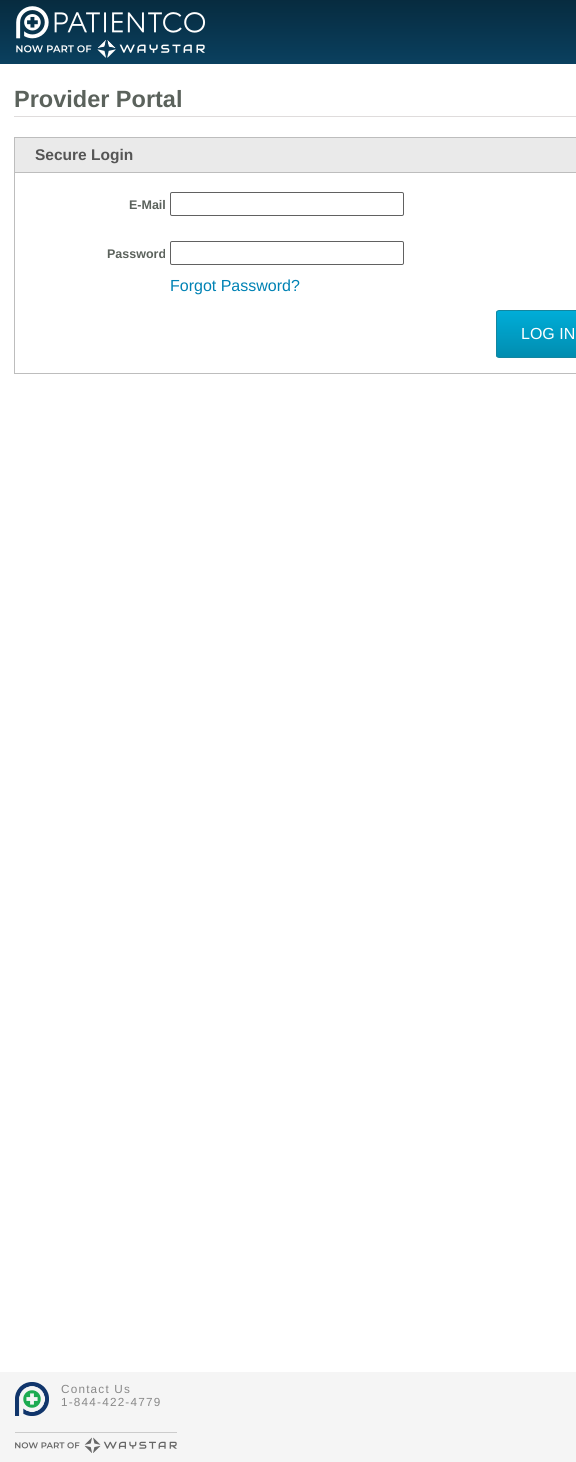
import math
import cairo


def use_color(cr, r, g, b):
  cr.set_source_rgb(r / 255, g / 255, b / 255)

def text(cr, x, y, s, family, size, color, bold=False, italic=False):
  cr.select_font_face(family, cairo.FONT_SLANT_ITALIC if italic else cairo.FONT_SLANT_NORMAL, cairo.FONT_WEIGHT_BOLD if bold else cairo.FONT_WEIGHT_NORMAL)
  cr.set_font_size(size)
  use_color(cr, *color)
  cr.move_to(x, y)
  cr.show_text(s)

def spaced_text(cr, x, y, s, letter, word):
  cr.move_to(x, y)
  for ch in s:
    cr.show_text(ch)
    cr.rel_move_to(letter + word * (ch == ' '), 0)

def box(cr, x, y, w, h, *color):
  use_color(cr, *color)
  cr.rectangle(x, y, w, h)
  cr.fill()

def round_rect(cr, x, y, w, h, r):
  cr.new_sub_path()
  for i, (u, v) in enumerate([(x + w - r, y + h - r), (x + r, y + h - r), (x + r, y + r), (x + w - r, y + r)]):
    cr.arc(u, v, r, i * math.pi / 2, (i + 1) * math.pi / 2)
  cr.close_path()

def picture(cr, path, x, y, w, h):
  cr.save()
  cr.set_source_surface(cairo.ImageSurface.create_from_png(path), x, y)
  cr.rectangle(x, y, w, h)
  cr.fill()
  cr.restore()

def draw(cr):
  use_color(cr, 255, 255, 255)
  cr.paint()
  gradient = cairo.LinearGradient(495, 0, 495, 64)
  gradient.add_color_stop_rgba(0, 0.027, 0.169, 0.247, 1)
  gradient.add_color_stop_rgba(1, 0.039, 0.251, 0.373, 1)
  cr.set_source(gradient)
  cr.rectangle(0, 0, 576, 64)
  cr.fill()
  picture(cr, "img_01.png", 16, 6, 190, 52)
  box(cr, 14, 116, 562, 1, 223, 220, 220)
  use_color(cr, 234, 234, 234)
  cr.rectangle(14.5, 137.5, 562, 35)
  cr.fill_preserve()
  use_color(cr, 189, 189, 189)
  cr.set_line_width(1)
  cr.stroke()
  box(cr, 14, 373, 562, 1, 189, 189, 189)
  box(cr, 14, 173, 1, 201, 189, 189, 189)
  round_rect(cr, 170.5, 192.5, 233, 23, 1.5)
  use_color(cr, 97, 97, 97)
  cr.stroke()
  round_rect(cr, 170.5, 241.5, 233, 23, 1.5)
  cr.stroke()
  cr.save()
  round_rect(cr, 496, 310, 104, 48, 3)
  cr.clip()
  gradient = cairo.LinearGradient(548, 311, 548, 357)
  gradient.add_color_stop_rgba(0, 0, 0.678, 0.847, 1)
  gradient.add_color_stop_rgba(1, 0.004, 0.553, 0.69, 1)
  cr.set_source(gradient)
  cr.rectangle(496, 311, 80, 46)
  cr.fill()
  cr.restore()
  round_rect(cr, 496.5, 310.5, 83, 47, 2.5)
  use_color(cr, 18, 134, 160)
  cr.stroke()
  box(cr, 0, 1372, 576, 90, 245, 245, 245)
  picture(cr, "img_02.png", 15, 1382, 34, 34)
  picture(cr, "img_03.png", 15, 1432, 162, 21)
  text(cr, 14, 107, "Provider Portal", "Liberation Sans", 23.5, (91, 98, 92), bold=True)
  text(cr, 35, 160, "Secure Login", "Liberation Sans", 15.5, (85, 85, 85), bold=True)
  text(cr, 129, 209, "E-Mail", "Liberation Sans", 12.5, (91, 98, 92), bold=True)
  text(cr, 107, 258, "Password", "Liberation Sans", 12.5, (91, 98, 92), bold=True)
  text(cr, 170, 291, "Forgot Password?", "Liberation Sans", 16, (0, 130, 180))
  text(cr, 521, 339, "LOG IN", "Liberation Sans", 16, (255, 255, 255))
  cr.set_font_size(11.75)
  use_color(cr, 136, 136, 136)
  spaced_text(cr, 61, 1393, "Contact Us", 1.2, 0)
  spaced_text(cr, 61, 1406, "1-844-422-4779", 1.2, 0)


surface = cairo.ImageSurface(cairo.FORMAT_RGB24, 576, 1462)
cr = cairo.Context(surface)
options = cairo.FontOptions()
options.set_hint_metrics(cairo.HINT_METRICS_OFF)
options.set_hint_style(cairo.HINT_STYLE_NONE)
cr.set_font_options(options)
cr.set_miter_limit(4)
draw(cr)
surface.write_to_png("out.png")
